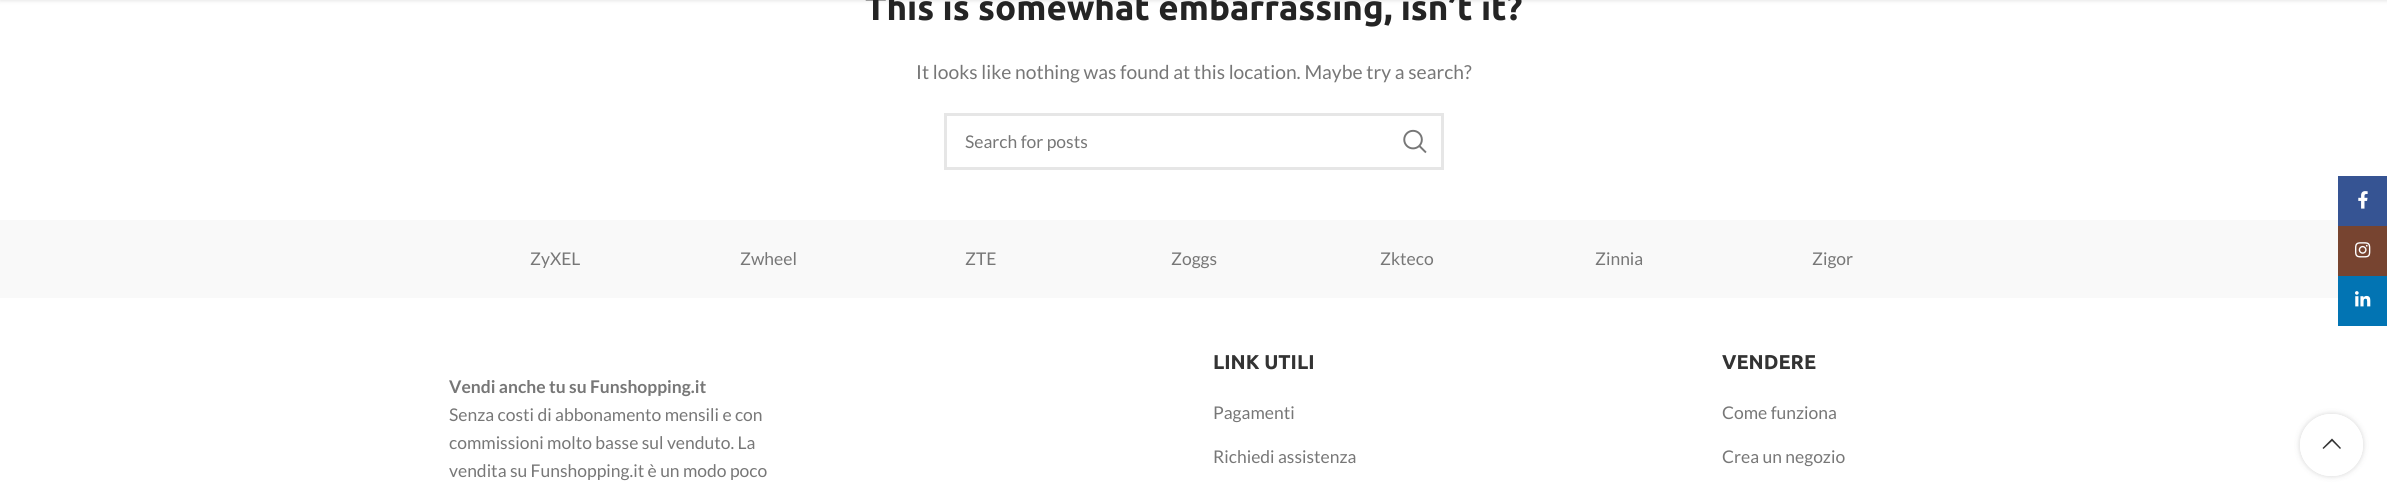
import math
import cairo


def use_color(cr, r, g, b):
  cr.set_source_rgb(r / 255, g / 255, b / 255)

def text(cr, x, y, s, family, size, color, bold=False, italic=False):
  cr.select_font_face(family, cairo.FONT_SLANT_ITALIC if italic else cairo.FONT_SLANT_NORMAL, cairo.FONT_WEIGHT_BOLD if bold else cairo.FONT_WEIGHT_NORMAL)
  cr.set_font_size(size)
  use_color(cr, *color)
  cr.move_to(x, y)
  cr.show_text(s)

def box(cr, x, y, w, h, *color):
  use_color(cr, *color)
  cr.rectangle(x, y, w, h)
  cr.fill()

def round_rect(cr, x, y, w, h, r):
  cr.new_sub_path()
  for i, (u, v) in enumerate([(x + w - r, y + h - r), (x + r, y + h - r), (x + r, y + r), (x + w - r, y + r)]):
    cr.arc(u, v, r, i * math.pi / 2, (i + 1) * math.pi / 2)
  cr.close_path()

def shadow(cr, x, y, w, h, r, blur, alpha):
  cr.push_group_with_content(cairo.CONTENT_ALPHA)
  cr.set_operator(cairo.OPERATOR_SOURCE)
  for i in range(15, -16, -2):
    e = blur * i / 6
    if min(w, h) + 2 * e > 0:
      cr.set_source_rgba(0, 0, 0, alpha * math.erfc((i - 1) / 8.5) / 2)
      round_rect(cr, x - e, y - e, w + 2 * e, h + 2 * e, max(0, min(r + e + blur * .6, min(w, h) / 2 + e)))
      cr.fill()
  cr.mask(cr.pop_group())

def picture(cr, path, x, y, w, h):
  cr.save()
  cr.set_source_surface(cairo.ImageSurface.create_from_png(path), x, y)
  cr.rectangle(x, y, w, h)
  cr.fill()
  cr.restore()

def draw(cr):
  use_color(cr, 255, 255, 255)
  cr.paint()
  use_color(cr, 0, 0, 0)
  shadow(cr, 0, -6, 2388, 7, 0, 2, 0.1)
  cr.rectangle(945.5, 114.5, 497, 54)
  use_color(cr, 230, 230, 230)
  cr.set_line_width(3)
  cr.stroke()
  picture(cr, "img_01.png", 1403, 129, 24, 25)
  box(cr, 0, 220, 2338, 78, 249, 249, 249)
  box(cr, 2338, 176, 49, 50, 54, 84, 147)
  picture(cr, "img_02.png", 2358, 191, 10, 18)
  box(cr, 2338, 226, 49, 50, 119, 68, 48)
  picture(cr, "img_03.png", 2355, 242, 16, 16)
  box(cr, 2338, 276, 49, 50, 2, 116, 179)
  picture(cr, "img_04.png", 2355, 291, 16, 16)
  cr.save()
  cr.set_fill_rule(cairo.FILL_RULE_EVEN_ODD)
  cr.new_path()
  cr.move_to(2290, 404)
  cr.line_to(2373, 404)
  cr.line_to(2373, 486)
  cr.line_to(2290, 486)
  cr.close_path()
  cr.move_to(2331, 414)
  cr.line_to(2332, 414)
  cr.curve_to(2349, 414, 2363, 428, 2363, 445)
  cr.curve_to(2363, 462, 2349, 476, 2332, 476)
  cr.line_to(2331, 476)
  cr.curve_to(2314, 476, 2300, 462, 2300, 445)
  cr.curve_to(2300, 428, 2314, 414, 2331, 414)
  cr.close_path()
  cr.clip()
  use_color(cr, 0, 0, 0)
  shadow(cr, 2300, 414, 63, 62, 31, 3, 0.17)
  cr.restore()
  cr.set_source_rgba(1, 1, 1, 0.9)
  round_rect(cr, 2300, 414, 63, 62, 31)
  cr.fill()
  use_color(cr, 51, 51, 51)
  cr.new_path()
  cr.move_to(2340, 449)
  cr.line_to(2341, 448)
  cr.line_to(2332, 438.5)
  cr.line_to(2322.5, 448)
  cr.line_to(2323.5, 449)
  cr.line_to(2332, 441)
  cr.close_path()
  cr.fill()
  text(cr, 865, 20, "This is somewhat embarrassing, isn’t it?", "Ubuntu", 35, (36, 36, 36), bold=True)
  text(cr, 916, 79, "It looks like nothing was found at this location. Maybe try a search?", "Lato", 19.25, (119, 119, 119))
  text(cr, 965, 148, "Search for posts", "Lato", 17.5, (119, 119, 119))
  text(cr, 530, 265, "ZyXEL", "Lato", 17.5, (119, 119, 119))
  text(cr, 740, 265, "Zwheel", "Lato", 17.5, (119, 119, 119))
  text(cr, 965, 265, "ZTE", "Lato", 17.5, (119, 119, 119))
  text(cr, 1171, 265, "Zoggs", "Lato", 17.5, (119, 119, 119))
  text(cr, 1380, 265, "Zkteco", "Lato", 17.5, (119, 119, 119))
  text(cr, 1595, 265, "Zinnia", "Lato", 17.5, (119, 119, 119))
  text(cr, 1812, 265, "Zigor", "Lato", 17.5, (119, 119, 119))
  text(cr, 449, 393, "Vendi anche tu su Funshopping.it", "Lato", 17.5, (119, 119, 119), bold=True)
  text(cr, 449, 421, "Senza costi di abbonamento mensili e con", "Lato", 17.5, (119, 119, 119))
  text(cr, 449, 449, "commissioni molto basse sul venduto. La", "Lato", 17.5, (119, 119, 119))
  text(cr, 449, 477, "vendita su Funshopping.it è un modo poco", "Lato", 17.5, (119, 119, 119))
  text(cr, 1213, 369, "LINK UTILI", "Ubuntu", 20, (51, 51, 51), bold=True)
  text(cr, 1213, 419, "Pagamenti", "Lato", 17.5, (119, 119, 119))
  text(cr, 1213, 463, "Richiedi assistenza", "Lato", 17.5, (119, 119, 119))
  text(cr, 1722, 369, "VENDERE", "Ubuntu", 20, (51, 51, 51), bold=True)
  text(cr, 1722, 419, "Come funziona", "Lato", 17.5, (119, 119, 119))
  text(cr, 1722, 463, "Crea un negozio", "Lato", 17.5, (119, 119, 119))


surface = cairo.ImageSurface(cairo.FORMAT_RGB24, 2387, 501)
cr = cairo.Context(surface)
options = cairo.FontOptions()
options.set_hint_metrics(cairo.HINT_METRICS_OFF)
options.set_hint_style(cairo.HINT_STYLE_NONE)
cr.set_font_options(options)
cr.set_miter_limit(4)
draw(cr)
surface.write_to_png("out.png")
